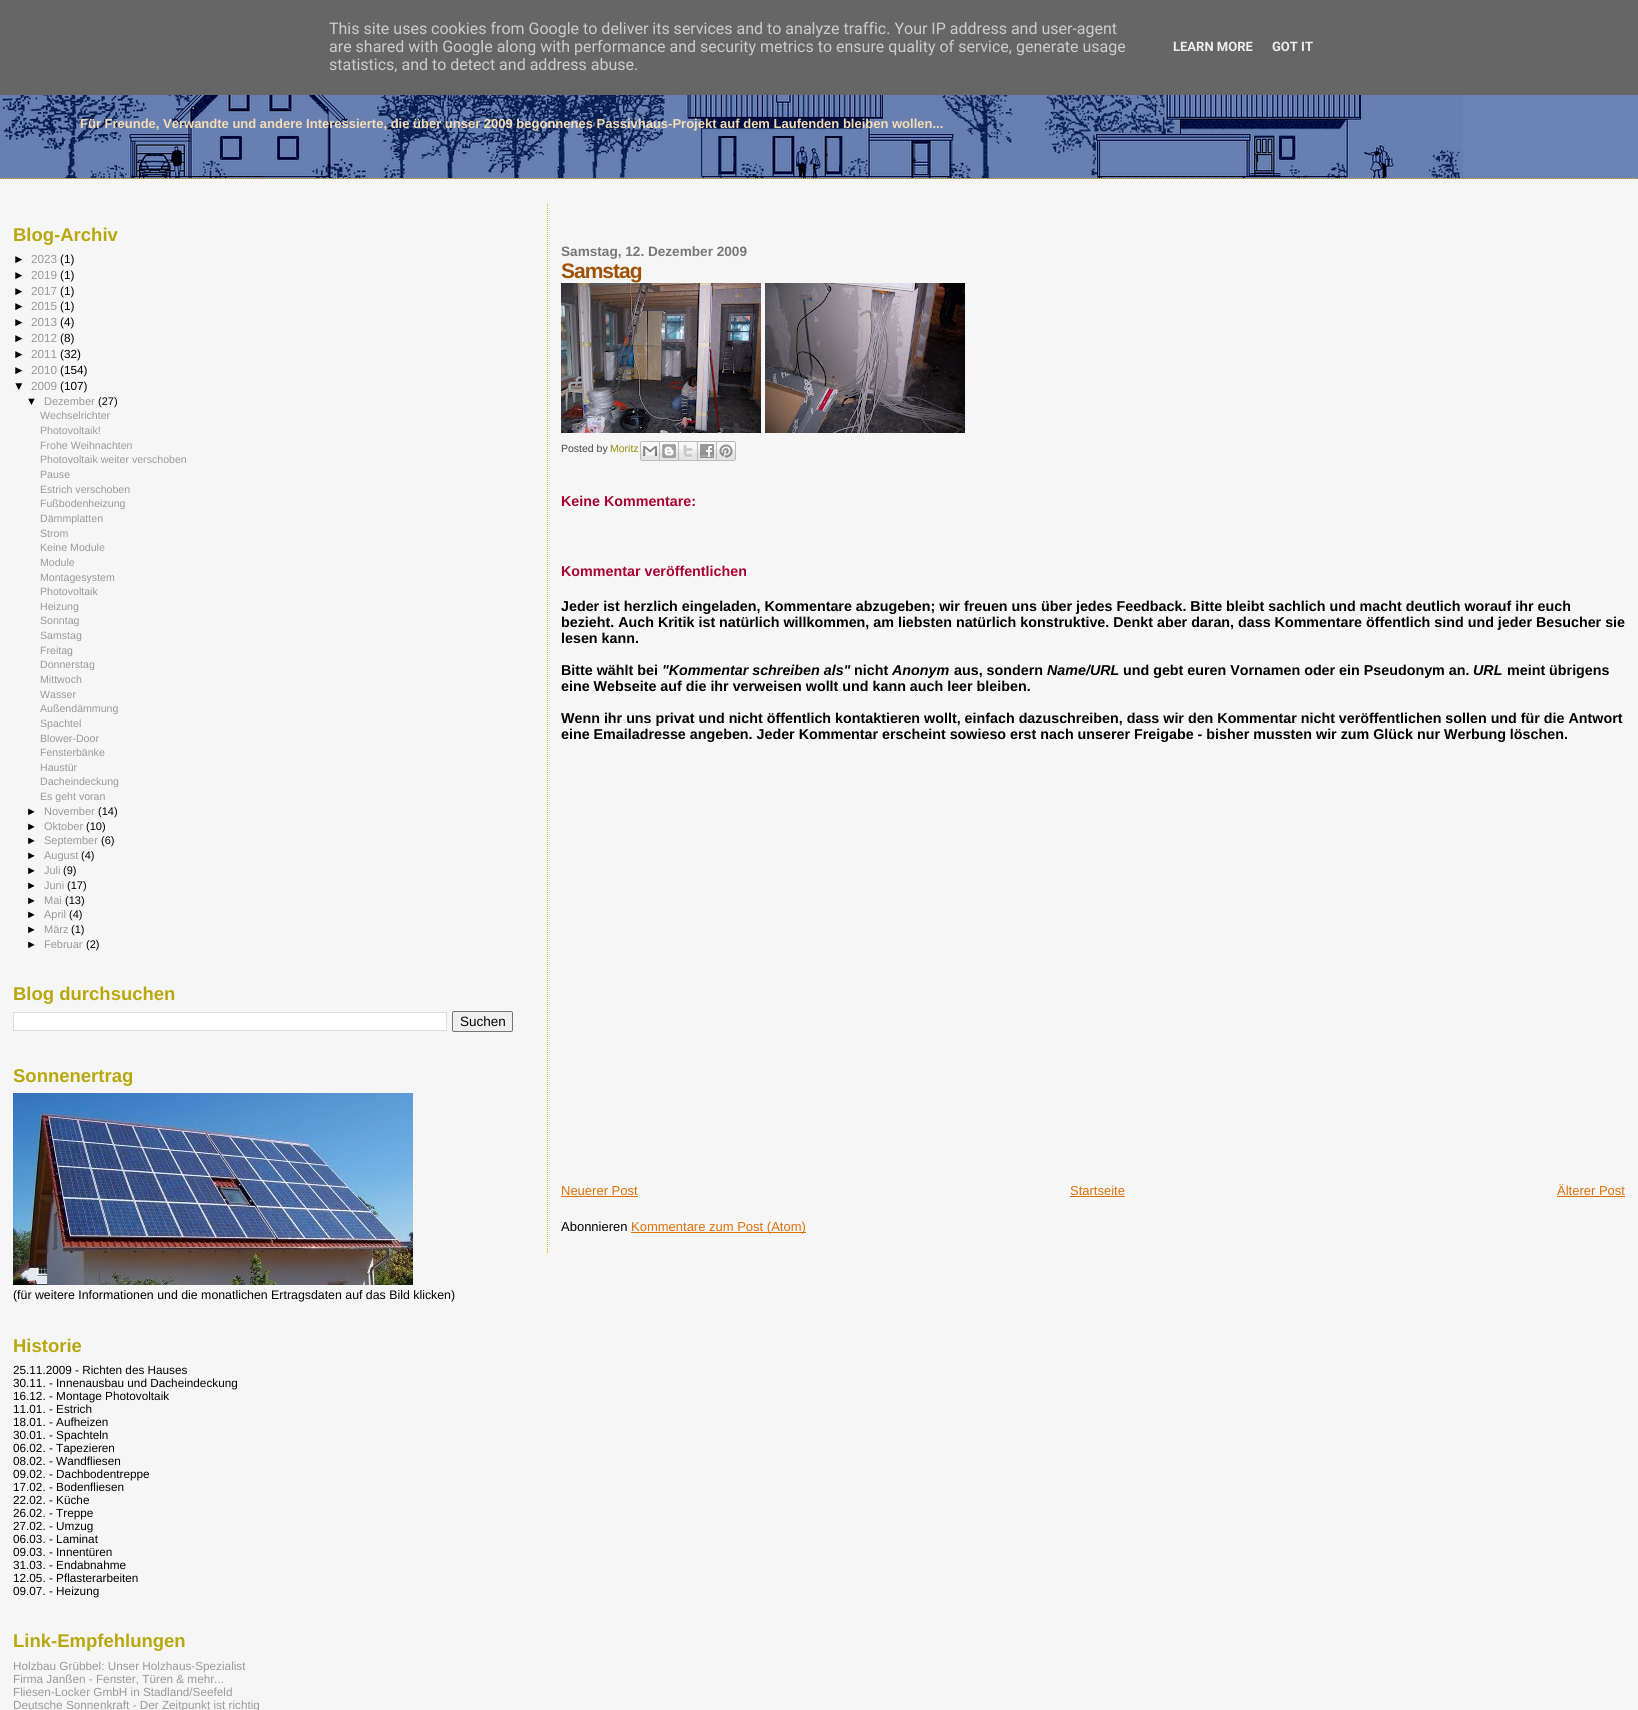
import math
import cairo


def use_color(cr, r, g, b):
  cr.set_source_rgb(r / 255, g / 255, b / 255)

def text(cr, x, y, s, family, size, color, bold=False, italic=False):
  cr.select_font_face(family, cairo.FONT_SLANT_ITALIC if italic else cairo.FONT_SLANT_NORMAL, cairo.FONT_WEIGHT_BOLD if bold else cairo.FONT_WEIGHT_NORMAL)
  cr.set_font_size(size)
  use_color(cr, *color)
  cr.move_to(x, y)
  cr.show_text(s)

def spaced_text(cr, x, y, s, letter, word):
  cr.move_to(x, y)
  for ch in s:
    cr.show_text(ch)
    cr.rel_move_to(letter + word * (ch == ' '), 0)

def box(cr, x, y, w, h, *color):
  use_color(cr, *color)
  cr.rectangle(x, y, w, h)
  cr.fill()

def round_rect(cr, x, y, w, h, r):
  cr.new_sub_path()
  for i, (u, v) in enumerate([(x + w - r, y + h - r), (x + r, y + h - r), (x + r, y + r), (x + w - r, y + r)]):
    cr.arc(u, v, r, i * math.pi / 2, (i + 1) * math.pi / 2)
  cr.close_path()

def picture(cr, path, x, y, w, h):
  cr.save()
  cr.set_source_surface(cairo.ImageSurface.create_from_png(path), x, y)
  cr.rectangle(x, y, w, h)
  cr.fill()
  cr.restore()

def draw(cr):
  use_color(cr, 246, 246, 246)
  cr.paint()
  box(cr, 0, 0, 1638, 95, 102, 102, 102)
  box(cr, 1, 95, 1637, 84, 108, 130, 181)
  cr.new_path()
  cr.move_to(0, 178.5)
  cr.line_to(1638, 178.5)
  use_color(cr, 224, 173, 18)
  cr.set_line_width(1)
  cr.set_dash([1, 1])
  cr.stroke()
  picture(cr, "img_01.png", 0, 95, 1463, 83)
  use_color(cr, 255, 255, 255)
  cr.rectangle(13.5, 1012.5, 433, 18)
  cr.fill_preserve()
  use_color(cr, 221, 221, 221)
  cr.set_dash([])
  cr.stroke()
  use_color(cr, 239, 239, 239)
  round_rect(cr, 452.5, 1011.5, 60, 20, 1.5)
  cr.fill_preserve()
  use_color(cr, 118, 118, 118)
  cr.stroke()
  picture(cr, "img_02.png", 13, 1093, 400, 192)
  cr.new_path()
  cr.move_to(547.5, 204)
  cr.line_to(547.5, 1254)
  use_color(cr, 224, 173, 18)
  cr.set_dash([1, 1])
  cr.stroke()
  picture(cr, "img_03.png", 561, 283, 200, 150)
  picture(cr, "img_04.png", 765, 283, 200, 150)
  picture(cr, "img_05.png", 640, 441, 20, 20)
  picture(cr, "img_06.png", 660, 441, 19, 20)
  picture(cr, "img_07.png", 679, 441, 19, 20)
  picture(cr, "img_08.png", 698, 441, 19, 20)
  picture(cr, "img_09.png", 717, 441, 19, 20)
  box(cr, 561, 1196, 77, 1, 222, 112, 8)
  box(cr, 1070, 1196, 55, 1, 222, 112, 8)
  box(cr, 1557, 1196, 68, 1, 222, 112, 8)
  box(cr, 631, 1232, 175, 1, 222, 112, 8)
  text(cr, 329, 34, "This site uses cookies from Google to deliver its services and to analyze traffic. Your IP address and user-agent", "Roboto", 16, (204, 204, 204))
  text(cr, 329, 52, "are shared with Google along with performance and security metrics to ensure quality of service, generate usage", "Roboto", 16, (204, 204, 204))
  text(cr, 329, 70, "statistics, and to detect and address abuse.", "Roboto", 16, (204, 204, 204))
  text(cr, 1173, 51, "LEARN MORE", "Roboto", 13, (238, 238, 238), bold=True)
  text(cr, 1272, 51, "GOT IT", "Roboto", 13, (238, 238, 238), bold=True)
  text(cr, 80, 128, "Für Freunde, Verwandte und andere Interessierte, die über unser 2009 begonnenes Passivhaus-Projekt auf dem Laufenden bleiben wollen...", "Liberation Sans", 13, (245, 222, 179), bold=True)
  text(cr, 13, 241, "Blog-Archiv", "Liberation Sans", 18.5, (184, 168, 13), bold=True)
  text(cr, 13, 263, "►", "Liberation Sans", 11.75, (0, 0, 0))
  text(cr, 31, 263, "2023", "Liberation Sans", 11.75, (153, 153, 153))
  text(cr, 60, 263, "(1)", "Liberation Sans", 11.75, (0, 0, 0))
  text(cr, 13, 279, "►", "Liberation Sans", 11.75, (0, 0, 0))
  text(cr, 31, 279, "2019", "Liberation Sans", 11.75, (153, 153, 153))
  text(cr, 60, 279, "(1)", "Liberation Sans", 11.75, (0, 0, 0))
  text(cr, 13, 295, "►", "Liberation Sans", 11.75, (0, 0, 0))
  text(cr, 31, 295, "2017", "Liberation Sans", 11.75, (153, 153, 153))
  text(cr, 60, 295, "(1)", "Liberation Sans", 11.75, (0, 0, 0))
  text(cr, 13, 310, "►", "Liberation Sans", 11.75, (0, 0, 0))
  text(cr, 31, 310, "2015", "Liberation Sans", 11.75, (153, 153, 153))
  text(cr, 60, 310, "(1)", "Liberation Sans", 11.75, (0, 0, 0))
  text(cr, 13, 326, "►", "Liberation Sans", 11.75, (0, 0, 0))
  text(cr, 31, 326, "2013", "Liberation Sans", 11.75, (153, 153, 153))
  text(cr, 60, 326, "(4)", "Liberation Sans", 11.75, (0, 0, 0))
  text(cr, 13, 342, "►", "Liberation Sans", 11.75, (0, 0, 0))
  text(cr, 31, 342, "2012", "Liberation Sans", 11.75, (153, 153, 153))
  text(cr, 60, 342, "(8)", "Liberation Sans", 11.75, (0, 0, 0))
  text(cr, 13, 358, "►", "Liberation Sans", 11.75, (0, 0, 0))
  text(cr, 31, 358, "2011", "Liberation Sans", 11.75, (153, 153, 153))
  text(cr, 60, 358, "(32)", "Liberation Sans", 11.75, (0, 0, 0))
  text(cr, 13, 374, "►", "Liberation Sans", 11.75, (0, 0, 0))
  text(cr, 31, 374, "2010", "Liberation Sans", 11.75, (153, 153, 153))
  text(cr, 60, 374, "(154)", "Liberation Sans", 11.75, (0, 0, 0))
  text(cr, 13, 390, "▼", "Liberation Sans", 11.75, (0, 0, 0))
  text(cr, 31, 390, "2009", "Liberation Sans", 11.75, (153, 153, 153))
  text(cr, 60, 390, "(107)", "Liberation Sans", 11.75, (0, 0, 0))
  text(cr, 26, 405, "▼", "Liberation Sans", 11, (0, 0, 0))
  text(cr, 44, 405, "Dezember", "Liberation Sans", 11, (153, 153, 153))
  text(cr, 98, 405, "(27)", "Liberation Sans", 11, (0, 0, 0))
  text(cr, 40, 419, "Wechselrichter", "Liberation Sans", 10.6, (153, 153, 153))
  text(cr, 40, 434, "Photovoltaik!", "Liberation Sans", 10.6, (153, 153, 153))
  text(cr, 40, 449, "Frohe Weihnachten", "Liberation Sans", 10.6, (153, 153, 153))
  text(cr, 40, 463, "Photovoltaik weiter verschoben", "Liberation Sans", 10.6, (153, 153, 153))
  text(cr, 40, 478, "Pause", "Liberation Sans", 10.6, (153, 153, 153))
  text(cr, 40, 493, "Estrich verschoben", "Liberation Sans", 10.6, (153, 153, 153))
  text(cr, 40, 507, "Fußbodenheizung", "Liberation Sans", 10.6, (153, 153, 153))
  text(cr, 40, 522, "Dämmplatten", "Liberation Sans", 10.6, (153, 153, 153))
  text(cr, 40, 537, "Strom", "Liberation Sans", 10.6, (153, 153, 153))
  text(cr, 40, 551, "Keine Module", "Liberation Sans", 10.6, (153, 153, 153))
  text(cr, 40, 566, "Module", "Liberation Sans", 10.6, (153, 153, 153))
  text(cr, 40, 581, "Montagesystem", "Liberation Sans", 10.6, (153, 153, 153))
  text(cr, 40, 595, "Photovoltaik", "Liberation Sans", 10.6, (153, 153, 153))
  text(cr, 40, 610, "Heizung", "Liberation Sans", 10.6, (153, 153, 153))
  text(cr, 40, 624, "Sonntag", "Liberation Sans", 10.6, (153, 153, 153))
  text(cr, 40, 639, "Samstag", "Liberation Sans", 10.6, (153, 153, 153))
  text(cr, 40, 654, "Freitag", "Liberation Sans", 10.6, (153, 153, 153))
  text(cr, 40, 668, "Donnerstag", "Liberation Sans", 10.6, (153, 153, 153))
  text(cr, 40, 683, "Mittwoch", "Liberation Sans", 10.6, (153, 153, 153))
  text(cr, 40, 698, "Wasser", "Liberation Sans", 10.6, (153, 153, 153))
  text(cr, 40, 712, "Außendämmung", "Liberation Sans", 10.6, (153, 153, 153))
  text(cr, 40, 727, "Spachtel", "Liberation Sans", 10.6, (153, 153, 153))
  text(cr, 40, 742, "Blower-Door", "Liberation Sans", 10.6, (153, 153, 153))
  text(cr, 40, 756, "Fensterbänke", "Liberation Sans", 10.6, (153, 153, 153))
  text(cr, 40, 771, "Haustür", "Liberation Sans", 10.6, (153, 153, 153))
  text(cr, 40, 785, "Dacheindeckung", "Liberation Sans", 10.6, (153, 153, 153))
  text(cr, 40, 800, "Es geht voran", "Liberation Sans", 10.6, (153, 153, 153))
  text(cr, 26, 815, "►", "Liberation Sans", 11, (0, 0, 0))
  text(cr, 44, 815, "November", "Liberation Sans", 11, (153, 153, 153))
  text(cr, 98, 815, "(14)", "Liberation Sans", 11, (0, 0, 0))
  text(cr, 26, 830, "►", "Liberation Sans", 11, (0, 0, 0))
  text(cr, 44, 830, "Oktober", "Liberation Sans", 11, (153, 153, 153))
  text(cr, 86, 830, "(10)", "Liberation Sans", 11, (0, 0, 0))
  text(cr, 26, 844, "►", "Liberation Sans", 11, (0, 0, 0))
  text(cr, 44, 844, "September", "Liberation Sans", 11, (153, 153, 153))
  text(cr, 101, 844, "(6)", "Liberation Sans", 11, (0, 0, 0))
  text(cr, 26, 859, "►", "Liberation Sans", 11, (0, 0, 0))
  text(cr, 44, 859, "August", "Liberation Sans", 11, (153, 153, 153))
  text(cr, 81, 859, "(4)", "Liberation Sans", 11, (0, 0, 0))
  text(cr, 26, 874, "►", "Liberation Sans", 11, (0, 0, 0))
  text(cr, 44, 874, "Juli", "Liberation Sans", 11, (153, 153, 153))
  text(cr, 63, 874, "(9)", "Liberation Sans", 11, (0, 0, 0))
  text(cr, 26, 889, "►", "Liberation Sans", 11, (0, 0, 0))
  text(cr, 44, 889, "Juni", "Liberation Sans", 11, (153, 153, 153))
  text(cr, 67, 889, "(17)", "Liberation Sans", 11, (0, 0, 0))
  text(cr, 26, 904, "►", "Liberation Sans", 11, (0, 0, 0))
  text(cr, 44, 904, "Mai", "Liberation Sans", 11, (153, 153, 153))
  text(cr, 65, 904, "(13)", "Liberation Sans", 11, (0, 0, 0))
  text(cr, 26, 918, "►", "Liberation Sans", 11, (0, 0, 0))
  text(cr, 44, 918, "April", "Liberation Sans", 11, (153, 153, 153))
  text(cr, 69, 918, "(4)", "Liberation Sans", 11, (0, 0, 0))
  text(cr, 26, 933, "►", "Liberation Sans", 11, (0, 0, 0))
  text(cr, 44, 933, "März", "Liberation Sans", 11, (153, 153, 153))
  text(cr, 71, 933, "(1)", "Liberation Sans", 11, (0, 0, 0))
  text(cr, 26, 948, "►", "Liberation Sans", 11, (0, 0, 0))
  text(cr, 44, 948, "Februar", "Liberation Sans", 11, (153, 153, 153))
  text(cr, 86, 948, "(2)", "Liberation Sans", 11, (0, 0, 0))
  text(cr, 13, 1000, "Blog durchsuchen", "Liberation Sans", 18.5, (184, 168, 13), bold=True)
  text(cr, 460, 1026, "Suchen", "Liberation Sans", 13.5, (0, 0, 0))
  text(cr, 13, 1082, "Sonnenertrag", "Liberation Sans", 18.5, (184, 168, 13), bold=True)
  text(cr, 13, 1299, "(für weitere Informationen und die monatlichen Ertragsdaten auf das Bild klicken)", "Liberation Sans", 12.35, (0, 0, 0))
  text(cr, 13, 1352, "Historie", "Liberation Sans", 18.5, (184, 168, 13), bold=True)
  text(cr, 13, 1374, "25.11.2009 - Richten des Hauses", "Liberation Sans", 11.75, (0, 0, 0))
  text(cr, 13, 1387, "30.11. - Innenausbau und Dacheindeckung", "Liberation Sans", 11.75, (0, 0, 0))
  text(cr, 13, 1400, "16.12. - Montage Photovoltaik", "Liberation Sans", 11.75, (0, 0, 0))
  text(cr, 13, 1413, "11.01. - Estrich", "Liberation Sans", 11.75, (0, 0, 0))
  text(cr, 13, 1426, "18.01. - Aufheizen", "Liberation Sans", 11.75, (0, 0, 0))
  text(cr, 13, 1439, "30.01. - Spachteln", "Liberation Sans", 11.75, (0, 0, 0))
  text(cr, 13, 1452, "06.02. - Tapezieren", "Liberation Sans", 11.75, (0, 0, 0))
  text(cr, 13, 1465, "08.02. - Wandfliesen", "Liberation Sans", 11.75, (0, 0, 0))
  text(cr, 13, 1478, "09.02. - Dachbodentreppe", "Liberation Sans", 11.75, (0, 0, 0))
  text(cr, 13, 1491, "17.02. - Bodenfliesen", "Liberation Sans", 11.75, (0, 0, 0))
  text(cr, 13, 1504, "22.02. - Küche", "Liberation Sans", 11.75, (0, 0, 0))
  text(cr, 13, 1517, "26.02. - Treppe", "Liberation Sans", 11.75, (0, 0, 0))
  text(cr, 13, 1530, "27.02. - Umzug", "Liberation Sans", 11.75, (0, 0, 0))
  text(cr, 13, 1543, "06.03. - Laminat", "Liberation Sans", 11.75, (0, 0, 0))
  text(cr, 13, 1556, "09.03. - Innentüren", "Liberation Sans", 11.75, (0, 0, 0))
  text(cr, 13, 1569, "31.03. - Endabnahme", "Liberation Sans", 11.75, (0, 0, 0))
  text(cr, 13, 1582, "12.05. - Pflasterarbeiten", "Liberation Sans", 11.75, (0, 0, 0))
  text(cr, 13, 1595, "09.07. - Heizung", "Liberation Sans", 11.75, (0, 0, 0))
  text(cr, 13, 1647, "Link-Empfehlungen", "Liberation Sans", 18.5, (184, 168, 13), bold=True)
  text(cr, 13, 1670, "Holzbau Grübbel: Unser Holzhaus-Spezialist", "Liberation Sans", 11.75, (153, 153, 153))
  text(cr, 13, 1683, "Firma Janßen - Fenster, Türen & mehr...", "Liberation Sans", 11.75, (153, 153, 153))
  text(cr, 13, 1696, "Fliesen-Locker GmbH in Stadland/Seefeld", "Liberation Sans", 11.75, (153, 153, 153))
  text(cr, 13, 1709, "Deutsche Sonnenkraft - Der Zeitpunkt ist richtig", "Liberation Sans", 11.75, (153, 153, 153))
  text(cr, 561, 256, "Samstag, 12. Dezember 2009", "Liberation Sans", 13.6, (119, 119, 119), bold=True)
  cr.set_font_size(21)
  use_color(cr, 158, 82, 5)
  spaced_text(cr, 561, 278, "Samstag", -1, 0)
  text(cr, 561, 452, "Posted by", "Liberation Sans", 10.5, (68, 68, 68))
  text(cr, 610, 452, "Moritz", "Liberation Sans", 10.5, (150, 138, 10))
  text(cr, 561, 506, "Keine Kommentare:", "Liberation Sans", 14.3, (170, 0, 51), bold=True)
  text(cr, 561, 576, "Kommentar veröffentlichen", "Liberation Sans", 14.3, (170, 0, 51), bold=True)
  text(cr, 561, 611, "Jeder ist herzlich eingeladen, Kommentare abzugeben; wir freuen uns über jedes Feedback. Bitte bleibt sachlich und macht deutlich worauf ihr euch", "Liberation Sans", 14.3, (0, 0, 0), bold=True)
  text(cr, 561, 627, "bezieht. Auch Kritik ist natürlich willkommen, am liebsten natürlich konstruktive. Denkt aber daran, dass Kommentare öffentlich sind und jeder Besucher sie", "Liberation Sans", 14.3, (0, 0, 0), bold=True)
  text(cr, 561, 643, "lesen kann.", "Liberation Sans", 14.3, (0, 0, 0), bold=True)
  text(cr, 561, 675, "Bitte wählt bei", "Liberation Sans", 14.3, (0, 0, 0), bold=True)
  text(cr, 662, 675, "\"Kommentar schreiben als\"", "Liberation Sans", 14.3, (0, 0, 0), bold=True, italic=True)
  text(cr, 854, 675, "nicht", "Liberation Sans", 14.3, (0, 0, 0), bold=True)
  text(cr, 892, 675, "Anonym", "Liberation Sans", 14.3, (0, 0, 0), bold=True, italic=True)
  text(cr, 954, 675, "aus, sondern", "Liberation Sans", 14.3, (0, 0, 0), bold=True)
  text(cr, 1047, 675, "Name/URL", "Liberation Sans", 14.3, (0, 0, 0), bold=True, italic=True)
  text(cr, 1123, 675, "und gebt euren Vornamen oder ein Pseudonym an.", "Liberation Sans", 14.3, (0, 0, 0), bold=True)
  text(cr, 1473, 675, "URL", "Liberation Sans", 14.3, (0, 0, 0), bold=True, italic=True)
  text(cr, 1507, 675, "meint übrigens", "Liberation Sans", 14.3, (0, 0, 0), bold=True)
  text(cr, 561, 691, "eine Webseite auf die ihr verweisen wollt und kann auch leer bleiben.", "Liberation Sans", 14.3, (0, 0, 0), bold=True)
  text(cr, 561, 723, "Wenn ihr uns privat und nicht öffentlich kontaktieren wollt, einfach dazuschreiben, dass wir den Kommentar nicht veröffentlichen sollen und für die Antwort", "Liberation Sans", 14.3, (0, 0, 0), bold=True)
  text(cr, 561, 739, "eine Emailadresse angeben. Jeder Kommentar erscheint sowieso erst nach unserer Freigabe - bisher mussten wir zum Glück nur Werbung löschen.", "Liberation Sans", 14.3, (0, 0, 0), bold=True)
  text(cr, 561, 1195, "Neuerer Post", "Liberation Sans", 13, (222, 112, 8))
  text(cr, 1070, 1195, "Startseite", "Liberation Sans", 13, (222, 112, 8))
  text(cr, 1557, 1195, "Älterer Post", "Liberation Sans", 13, (222, 112, 8))
  text(cr, 561, 1231, "Abonnieren", "Liberation Sans", 13, (0, 0, 0))
  text(cr, 631, 1231, "Kommentare zum Post (Atom)", "Liberation Sans", 13, (222, 112, 8))


surface = cairo.ImageSurface(cairo.FORMAT_RGB24, 1638, 1710)
cr = cairo.Context(surface)
options = cairo.FontOptions()
options.set_hint_metrics(cairo.HINT_METRICS_OFF)
options.set_hint_style(cairo.HINT_STYLE_NONE)
cr.set_font_options(options)
cr.set_miter_limit(4)
draw(cr)
surface.write_to_png("out.png")
